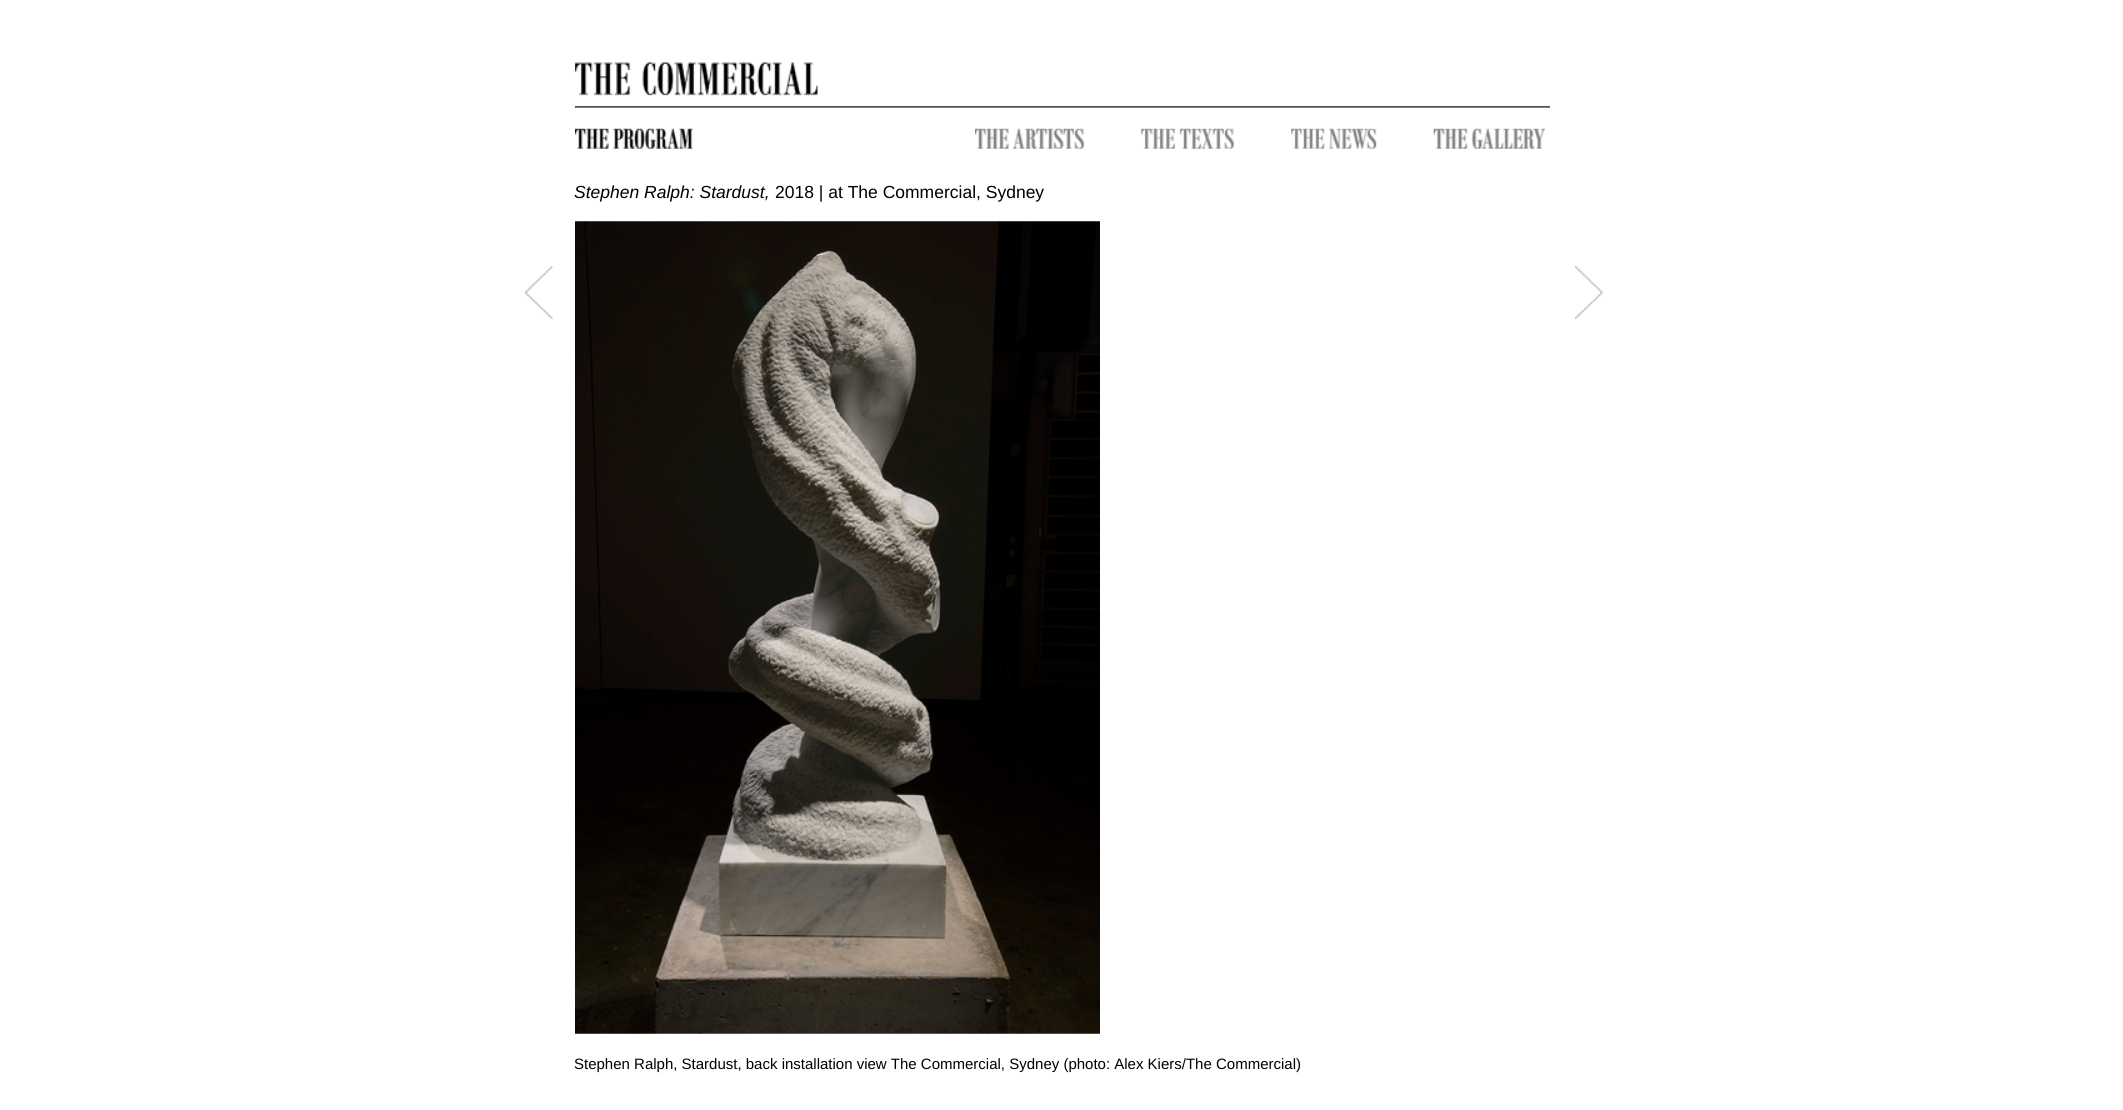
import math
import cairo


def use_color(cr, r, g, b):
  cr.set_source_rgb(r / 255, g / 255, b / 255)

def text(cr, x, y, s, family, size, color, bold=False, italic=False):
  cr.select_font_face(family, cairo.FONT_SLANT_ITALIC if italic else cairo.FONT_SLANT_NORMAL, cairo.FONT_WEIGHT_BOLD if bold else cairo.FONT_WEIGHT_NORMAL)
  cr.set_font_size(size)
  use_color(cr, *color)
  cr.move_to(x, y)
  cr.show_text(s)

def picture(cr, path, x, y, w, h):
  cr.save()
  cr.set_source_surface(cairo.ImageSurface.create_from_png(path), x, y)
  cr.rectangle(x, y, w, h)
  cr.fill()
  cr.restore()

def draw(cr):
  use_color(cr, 255, 255, 255)
  cr.paint()
  picture(cr, "img_01.png", 575, 62, 975, 46)
  picture(cr, "img_02.png", 575, 128, 118, 21)
  picture(cr, "img_03.png", 975, 128, 109, 21)
  picture(cr, "img_04.png", 1141, 128, 93, 21)
  picture(cr, "img_05.png", 1291, 128, 86, 21)
  picture(cr, "img_06.png", 1433, 128, 112, 21)
  picture(cr, "img_07.png", 575, 221, 525, 813)
  picture(cr, "img_08.png", 525, 266, 28, 53)
  picture(cr, "img_09.png", 1575, 266, 28, 53)
  text(cr, 574, 198, "Stephen Ralph: Stardust,", "Liberation Sans", 17.5, (0, 0, 0), italic=True)
  text(cr, 775, 198, "2018 | at The Commercial, Sydney", "Liberation Sans", 17.5, (0, 0, 0))
  text(cr, 574, 1069, "Stephen Ralph, Stardust, back installation view The Commercial, Sydney (photo: Alex Kiers/The Commercial)", "Liberation Sans", 15, (0, 0, 0))


surface = cairo.ImageSurface(cairo.FORMAT_RGB24, 2123, 1110)
cr = cairo.Context(surface)
options = cairo.FontOptions()
options.set_hint_metrics(cairo.HINT_METRICS_OFF)
options.set_hint_style(cairo.HINT_STYLE_NONE)
cr.set_font_options(options)
cr.set_miter_limit(4)
draw(cr)
surface.write_to_png("out.png")
